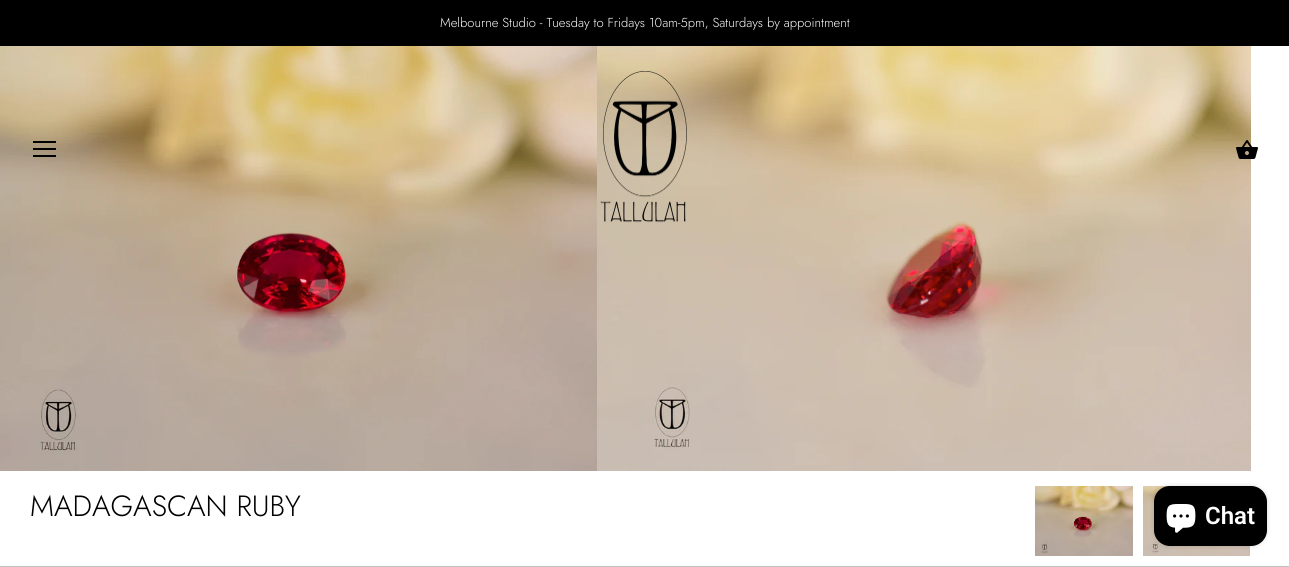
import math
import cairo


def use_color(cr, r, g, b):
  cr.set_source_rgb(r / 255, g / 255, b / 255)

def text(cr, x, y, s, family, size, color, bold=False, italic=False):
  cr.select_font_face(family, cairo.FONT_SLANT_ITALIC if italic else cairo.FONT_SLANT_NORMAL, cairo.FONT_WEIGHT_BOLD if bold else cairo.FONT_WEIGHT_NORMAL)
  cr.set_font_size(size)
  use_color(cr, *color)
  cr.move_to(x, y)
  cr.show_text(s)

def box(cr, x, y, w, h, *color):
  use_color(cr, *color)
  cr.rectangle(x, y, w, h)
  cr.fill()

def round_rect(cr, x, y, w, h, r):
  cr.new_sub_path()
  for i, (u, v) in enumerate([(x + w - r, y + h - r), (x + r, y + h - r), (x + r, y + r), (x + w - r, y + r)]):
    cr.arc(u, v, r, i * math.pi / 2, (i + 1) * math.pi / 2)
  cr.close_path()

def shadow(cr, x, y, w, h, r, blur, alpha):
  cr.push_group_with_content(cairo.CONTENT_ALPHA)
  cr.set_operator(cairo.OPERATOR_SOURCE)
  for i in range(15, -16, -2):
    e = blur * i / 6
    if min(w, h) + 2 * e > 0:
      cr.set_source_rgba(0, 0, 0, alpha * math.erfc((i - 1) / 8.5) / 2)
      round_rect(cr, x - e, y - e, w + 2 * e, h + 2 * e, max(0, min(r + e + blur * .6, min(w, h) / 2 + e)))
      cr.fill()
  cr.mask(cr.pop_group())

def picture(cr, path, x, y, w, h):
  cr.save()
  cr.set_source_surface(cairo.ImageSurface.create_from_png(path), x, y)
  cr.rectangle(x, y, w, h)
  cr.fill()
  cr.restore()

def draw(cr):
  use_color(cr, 255, 255, 255)
  cr.paint()
  box(cr, 0, 0, 1289, 46, 0, 0, 0)
  picture(cr, "img_03.png", 0, 46, 597, 425)
  box(cr, 33, 141, 23, 2, 0, 0, 0)
  box(cr, 33, 148, 23, 2, 0, 0, 0)
  box(cr, 33, 155, 23, 2, 0, 0, 0)
  picture(cr, "img_04.png", 597, 46, 654, 425)
  picture(cr, "img_01.png", 600, 71, 87, 152)
  picture(cr, "img_02.png", 1236, 140, 22, 19)
  box(cr, 0, 566, 1289, 1, 191, 191, 191)
  picture(cr, "img_05.png", 1035, 486, 98, 70)
  picture(cr, "img_06.png", 1143, 486, 107, 70)
  use_color(cr, 0, 0, 0)
  shadow(cr, 1154, 486, 113, 60, 16, 2.5, 0.15)
  use_color(cr, 0, 0, 0)
  round_rect(cr, 1154, 486, 113, 60, 16)
  cr.fill()
  picture(cr, "img_07.png", 1166, 504, 30, 29)
  text(cr, 440, 27, "Melbourne Studio - Tuesday to Fridays 10am-5pm, Saturdays by appointment", "Jost Light", 13, (255, 255, 255))
  text(cr, 30, 516, "MADAGASCAN RUBY", "Jost Light", 29.25, (0, 0, 0))
  text(cr, 1205, 524, "Chat", "Roboto SemiBold", 24, (255, 255, 255))


surface = cairo.ImageSurface(cairo.FORMAT_RGB24, 1289, 567)
cr = cairo.Context(surface)
options = cairo.FontOptions()
options.set_hint_metrics(cairo.HINT_METRICS_OFF)
options.set_hint_style(cairo.HINT_STYLE_NONE)
cr.set_font_options(options)
cr.set_miter_limit(4)
draw(cr)
surface.write_to_png("out.png")
